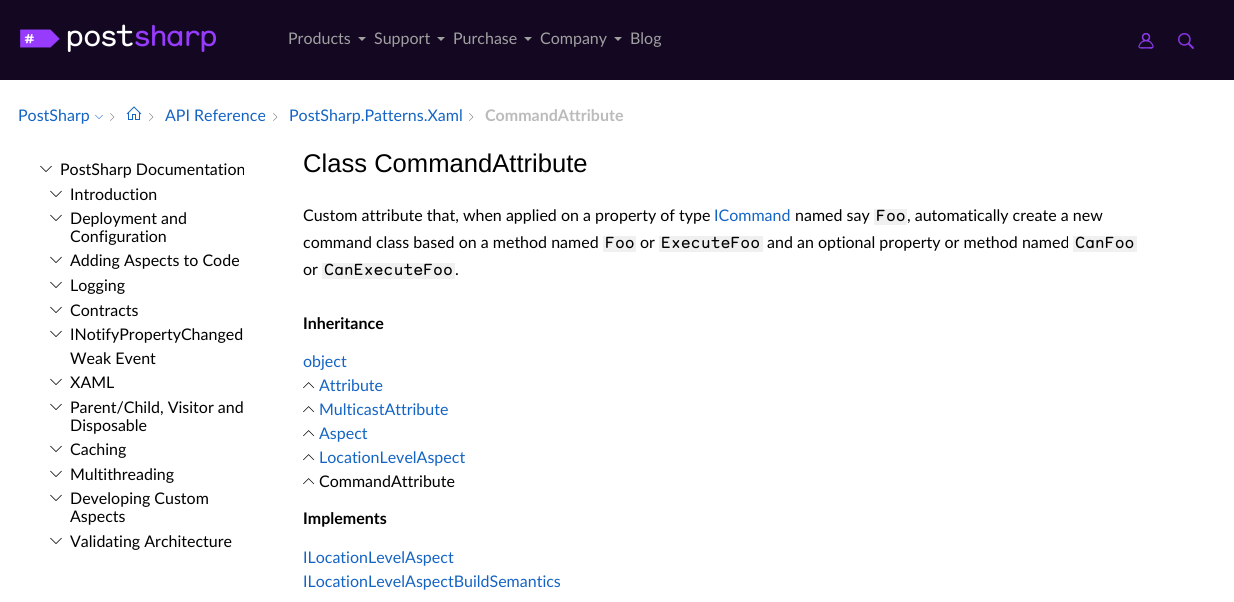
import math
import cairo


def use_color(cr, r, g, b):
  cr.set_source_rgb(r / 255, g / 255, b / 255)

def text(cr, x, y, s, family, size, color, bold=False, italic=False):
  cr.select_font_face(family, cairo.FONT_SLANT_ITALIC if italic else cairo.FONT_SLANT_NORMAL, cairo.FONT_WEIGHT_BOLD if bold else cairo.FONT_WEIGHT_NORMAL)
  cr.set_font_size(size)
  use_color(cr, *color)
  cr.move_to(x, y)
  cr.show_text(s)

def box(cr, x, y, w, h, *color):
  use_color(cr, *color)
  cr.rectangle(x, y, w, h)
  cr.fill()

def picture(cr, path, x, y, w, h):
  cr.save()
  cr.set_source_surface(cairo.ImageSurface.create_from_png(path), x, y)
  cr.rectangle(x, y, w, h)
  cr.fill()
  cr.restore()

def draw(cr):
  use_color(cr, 255, 255, 255)
  cr.paint()
  box(cr, 0, 0, 1234, 80, 19, 7, 34)
  picture(cr, "img_01.png", 20, 24, 196, 28)
  use_color(cr, 160, 160, 160)
  cr.new_path()
  cr.move_to(358, 37)
  cr.line_to(366, 37)
  cr.line_to(362, 41)
  cr.close_path()
  cr.fill()
  cr.new_path()
  cr.move_to(437, 37)
  cr.line_to(445, 37)
  cr.line_to(441, 41)
  cr.close_path()
  cr.fill()
  cr.new_path()
  cr.move_to(524, 37)
  cr.line_to(532, 37)
  cr.line_to(528, 41)
  cr.close_path()
  cr.fill()
  cr.new_path()
  cr.move_to(614, 37)
  cr.line_to(622, 37)
  cr.line_to(618, 41)
  cr.close_path()
  cr.fill()
  picture(cr, "img_02.png", 1138, 33, 16, 16)
  picture(cr, "img_03.png", 1178, 33, 16, 16)
  picture(cr, "img_04.png", 95, 114, 8, 5)
  picture(cr, "img_05.png", 110, 113, 5, 8)
  picture(cr, "img_06.png", 126, 106, 16, 14)
  picture(cr, "img_05.png", 149, 113, 5, 8)
  picture(cr, "img_05.png", 273, 113, 5, 8)
  picture(cr, "img_05.png", 469, 113, 5, 8)
  picture(cr, "img_07.png", 40, 165, 12, 7)
  picture(cr, "img_07.png", 50, 190, 12, 7)
  picture(cr, "img_07.png", 50, 214, 12, 7)
  picture(cr, "img_07.png", 50, 256, 12, 7)
  picture(cr, "img_07.png", 50, 281, 12, 7)
  picture(cr, "img_07.png", 50, 306, 12, 7)
  picture(cr, "img_07.png", 50, 330, 12, 7)
  picture(cr, "img_07.png", 50, 378, 12, 7)
  picture(cr, "img_07.png", 50, 403, 12, 7)
  picture(cr, "img_07.png", 50, 445, 12, 7)
  picture(cr, "img_07.png", 50, 470, 12, 7)
  picture(cr, "img_07.png", 50, 494, 12, 7)
  picture(cr, "img_07.png", 50, 537, 12, 7)
  box(cr, 874, 209, 33, 16, 240, 240, 240)
  box(cr, 603, 236, 33, 16, 240, 240, 240)
  box(cr, 659, 236, 104, 16, 240, 240, 240)
  box(cr, 1073, 236, 64, 16, 240, 240, 240)
  box(cr, 322, 263, 133, 16, 240, 240, 240)
  picture(cr, "img_08.png", 303, 382, 12, 7)
  picture(cr, "img_08.png", 303, 406, 12, 7)
  picture(cr, "img_08.png", 303, 430, 12, 7)
  picture(cr, "img_08.png", 303, 454, 12, 7)
  picture(cr, "img_08.png", 303, 478, 12, 7)
  text(cr, 288, 44, "Products", "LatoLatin", 16, (160, 160, 160))
  text(cr, 374, 44, "Support", "LatoLatin", 16, (160, 160, 160))
  text(cr, 453, 44, "Purchase", "LatoLatin", 16, (160, 160, 160))
  text(cr, 540, 44, "Company", "LatoLatin", 16, (160, 160, 160))
  text(cr, 630, 44, "Blog", "LatoLatin", 16, (160, 160, 160))
  text(cr, 18, 121, "PostSharp", "LatoLatin", 16, (19, 100, 196))
  text(cr, 165, 121, "API Reference", "LatoLatin", 16, (19, 100, 196))
  text(cr, 289, 121, "PostSharp.Patterns.Xaml", "LatoLatin", 16, (19, 100, 196))
  text(cr, 485, 121, "CommandAttribute", "LatoLatin", 16, (187, 187, 187), bold=True)
  text(cr, 60, 175, "PostSharp Documentation", "LatoLatin", 16, (0, 0, 0))
  text(cr, 70, 200, "Introduction", "LatoLatin", 16, (0, 0, 0))
  text(cr, 70, 224, "Deployment and", "LatoLatin", 16, (0, 0, 0))
  text(cr, 70, 242, "Configuration", "LatoLatin", 16, (0, 0, 0))
  text(cr, 70, 266, "Adding Aspects to Code", "LatoLatin", 16, (0, 0, 0))
  text(cr, 70, 291, "Logging", "LatoLatin", 16, (0, 0, 0))
  text(cr, 70, 316, "Contracts", "LatoLatin", 16, (0, 0, 0))
  text(cr, 70, 340, "INotifyPropertyChanged", "LatoLatin", 16, (0, 0, 0))
  text(cr, 70, 364, "Weak Event", "LatoLatin", 16, (0, 0, 0))
  text(cr, 70, 388, "XAML", "LatoLatin", 16, (0, 0, 0))
  text(cr, 70, 413, "Parent/Child, Visitor and", "LatoLatin", 16, (0, 0, 0))
  text(cr, 70, 431, "Disposable", "LatoLatin", 16, (0, 0, 0))
  text(cr, 70, 455, "Caching", "LatoLatin", 16, (0, 0, 0))
  text(cr, 70, 480, "Multithreading", "LatoLatin", 16, (0, 0, 0))
  text(cr, 70, 504, "Developing Custom", "LatoLatin", 16, (0, 0, 0))
  text(cr, 70, 522, "Aspects", "LatoLatin", 16, (0, 0, 0))
  text(cr, 70, 547, "Validating Architecture", "LatoLatin", 16, (0, 0, 0))
  text(cr, 303, 172, "Class CommandAttribute", "Liberation Sans", 25.6, (0, 0, 0))
  text(cr, 303, 221, "Custom attribute that, when applied on a property of type", "LatoLatin", 16, (0, 0, 0))
  text(cr, 714, 221, "ICommand", "LatoLatin", 16, (19, 100, 196))
  text(cr, 795, 221, "named say", "LatoLatin", 16, (0, 0, 0))
  text(cr, 876, 221, "Foo", "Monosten", 16, (0, 0, 0))
  text(cr, 907, 221, ", automatically create a new", "LatoLatin", 16, (0, 0, 0))
  text(cr, 303, 248, "command class based on a method named", "LatoLatin", 16, (0, 0, 0))
  text(cr, 605, 248, "Foo", "Monosten", 16, (0, 0, 0))
  text(cr, 640, 248, "or", "LatoLatin", 16, (0, 0, 0))
  text(cr, 661, 248, "ExecuteFoo", "Monosten", 16, (0, 0, 0))
  text(cr, 767, 248, "and an optional property or method named", "LatoLatin", 16, (0, 0, 0))
  text(cr, 1075, 248, "CanFoo", "Monosten", 16, (0, 0, 0))
  text(cr, 303, 275, "or", "LatoLatin", 16, (0, 0, 0))
  text(cr, 324, 275, "CanExecuteFoo", "Monosten", 16, (0, 0, 0))
  text(cr, 455, 275, ".", "LatoLatin", 16, (0, 0, 0))
  text(cr, 303, 329, "Inheritance", "LatoLatin", 16, (0, 0, 0), bold=True)
  text(cr, 303, 367, "object", "LatoLatin", 16, (19, 100, 196))
  text(cr, 319, 391, "Attribute", "LatoLatin", 16, (19, 100, 196))
  text(cr, 319, 415, "MulticastAttribute", "LatoLatin", 16, (19, 100, 196))
  text(cr, 319, 439, "Aspect", "LatoLatin", 16, (19, 100, 196))
  text(cr, 319, 463, "LocationLevelAspect", "LatoLatin", 16, (19, 100, 196))
  text(cr, 319, 487, "CommandAttribute", "LatoLatin", 16, (0, 0, 0))
  text(cr, 303, 524, "Implements", "LatoLatin", 16, (0, 0, 0), bold=True)
  text(cr, 303, 563, "ILocationLevelAspect", "LatoLatin", 16, (19, 100, 196))
  text(cr, 303, 587, "ILocationLevelAspectBuildSemantics", "LatoLatin", 16, (19, 100, 196))


surface = cairo.ImageSurface(cairo.FORMAT_RGB24, 1234, 602)
cr = cairo.Context(surface)
options = cairo.FontOptions()
options.set_hint_metrics(cairo.HINT_METRICS_OFF)
options.set_hint_style(cairo.HINT_STYLE_NONE)
cr.set_font_options(options)
cr.set_miter_limit(4)
draw(cr)
surface.write_to_png("out.png")
